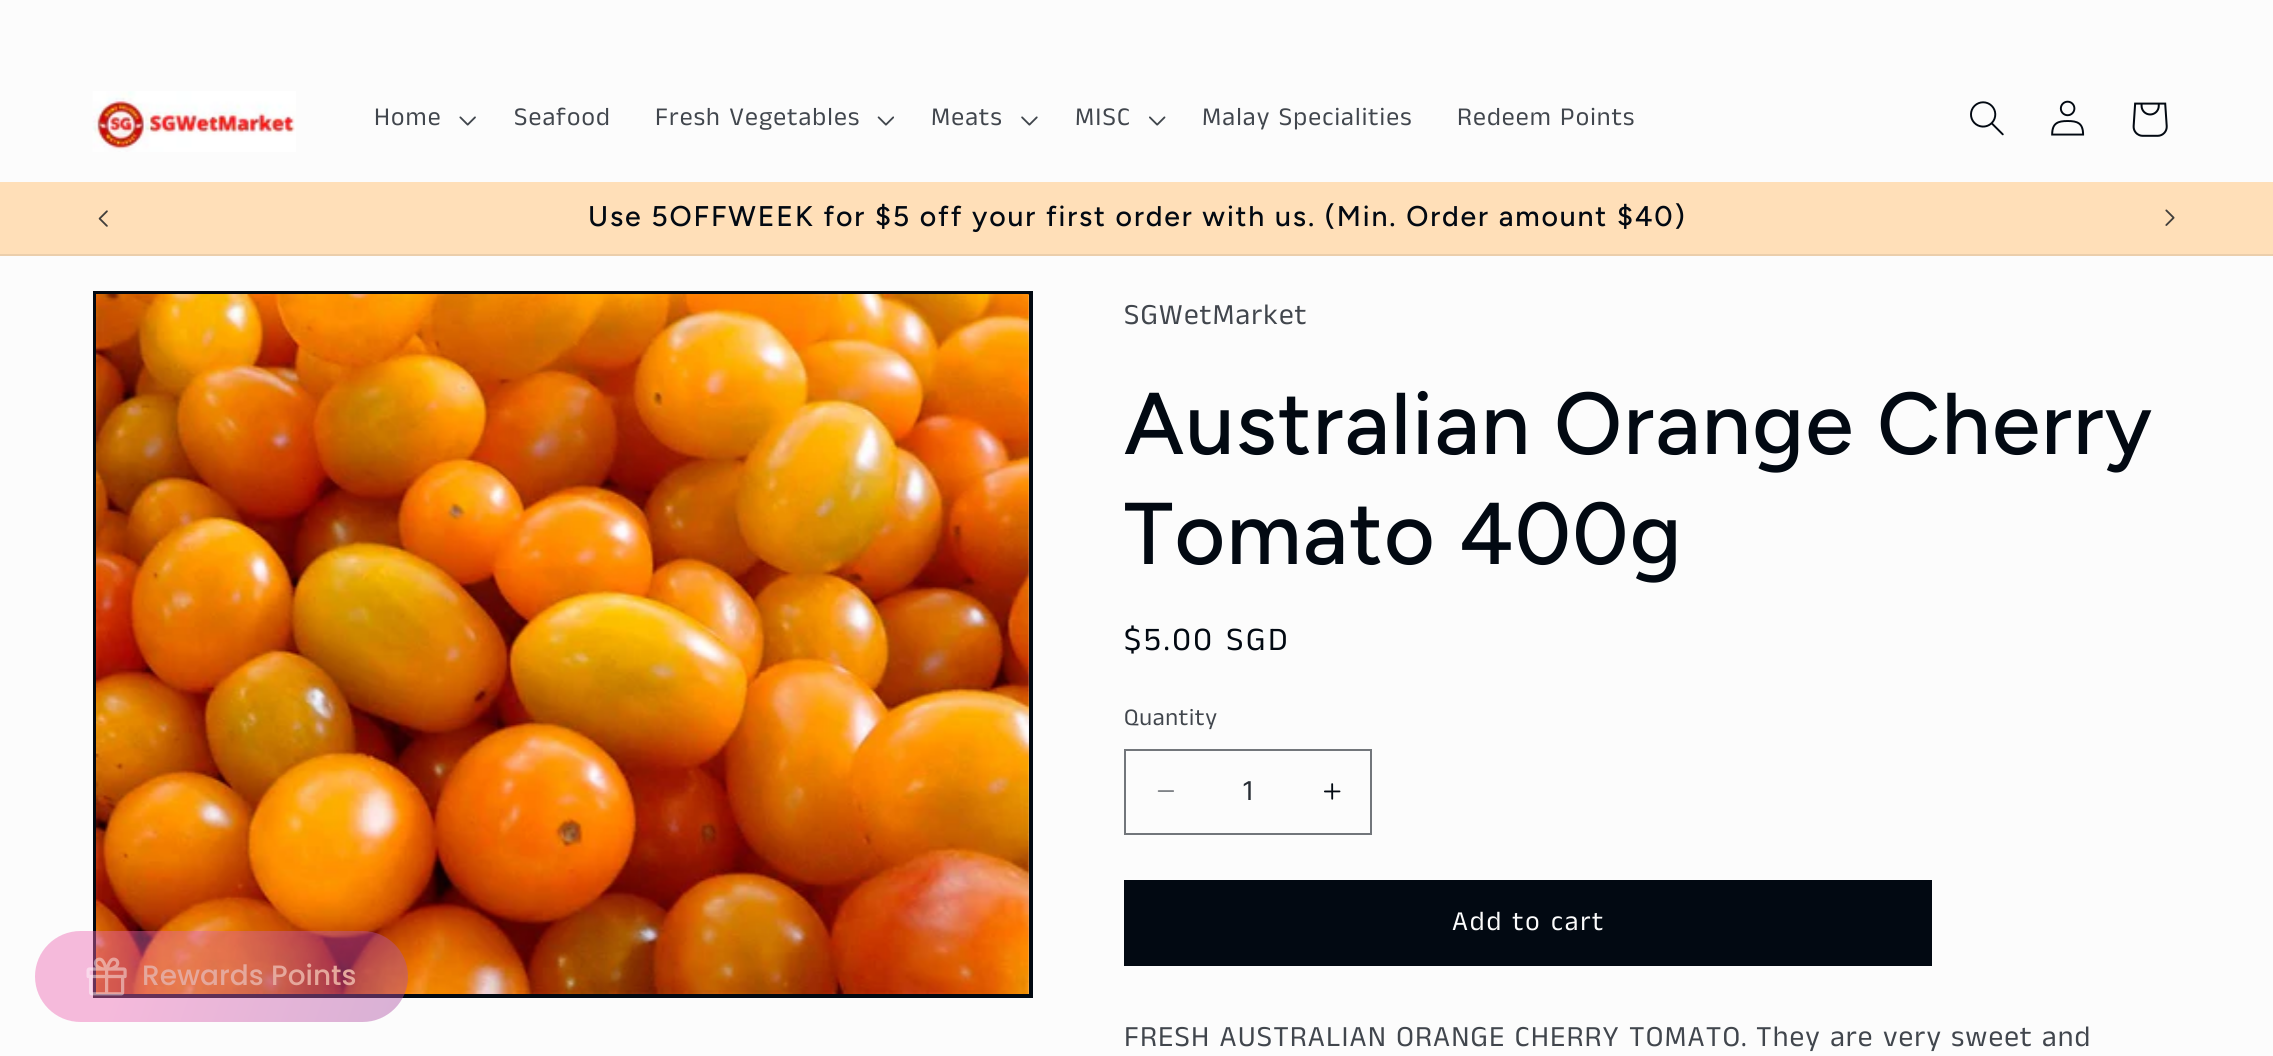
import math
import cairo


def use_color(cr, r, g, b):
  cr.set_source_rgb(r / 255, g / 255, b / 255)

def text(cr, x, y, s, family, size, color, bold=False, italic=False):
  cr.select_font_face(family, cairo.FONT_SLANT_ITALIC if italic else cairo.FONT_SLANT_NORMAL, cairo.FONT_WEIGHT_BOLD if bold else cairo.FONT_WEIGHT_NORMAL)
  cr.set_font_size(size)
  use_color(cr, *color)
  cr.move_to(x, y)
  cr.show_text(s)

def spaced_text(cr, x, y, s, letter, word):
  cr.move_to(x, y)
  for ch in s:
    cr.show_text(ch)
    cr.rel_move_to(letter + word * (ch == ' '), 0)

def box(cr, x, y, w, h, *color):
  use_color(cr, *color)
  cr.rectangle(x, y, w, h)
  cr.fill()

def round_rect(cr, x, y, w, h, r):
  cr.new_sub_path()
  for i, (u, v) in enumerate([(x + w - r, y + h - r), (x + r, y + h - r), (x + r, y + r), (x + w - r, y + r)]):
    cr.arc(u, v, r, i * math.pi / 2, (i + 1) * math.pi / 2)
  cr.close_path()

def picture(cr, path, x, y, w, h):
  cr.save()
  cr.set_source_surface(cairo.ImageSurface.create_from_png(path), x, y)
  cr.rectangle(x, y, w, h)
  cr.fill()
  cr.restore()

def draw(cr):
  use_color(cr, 252, 252, 252)
  cr.paint()
  picture(cr, "img_01.png", 92, 91, 204, 61)
  picture(cr, "img_02.png", 459, 116, 17, 10)
  picture(cr, "img_03.png", 877, 116, 17, 10)
  picture(cr, "img_04.png", 1021, 116, 17, 10)
  picture(cr, "img_05.png", 1149, 116, 17, 10)
  picture(cr, "img_06.png", 1970, 101, 34, 35)
  picture(cr, "img_07.png", 2051, 100, 34, 36)
  picture(cr, "img_08.png", 2132, 102, 36, 35)
  box(cr, 0, 182, 2273, 72, 255, 223, 184)
  box(cr, 0, 254, 2273, 2, 235, 206, 171)
  picture(cr, "img_09.png", 98, 210, 10, 17)
  picture(cr, "img_10.png", 2165, 209, 10, 17)
  cr.rectangle(95, 293, 936, 703)
  use_color(cr, 2, 9, 18)
  cr.set_line_width(4)
  cr.stroke()
  picture(cr, "img_12.png", 96, 294, 933, 700)
  gradient = cairo.LinearGradient(42, 913, 546, 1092)
  gradient.add_color_stop_rgba(0.17, 0.929, 0.4, 0.698, 0.44)
  gradient.add_color_stop_rgba(1, 0.525, 0.275, 0.612, 0.44)
  cr.set_source(gradient)
  round_rect(cr, 35, 931, 373, 91, 45.5)
  cr.fill()
  picture(cr, "img_11.png", 86, 957, 41, 39)
  picture(cr, "img_13.png", 1157, 790, 17, 2)
  picture(cr, "img_14.png", 1324, 783, 17, 17)
  cr.rectangle(1125, 750, 246, 84)
  use_color(cr, 114, 118, 123)
  cr.set_line_width(2)
  cr.stroke()
  box(cr, 1124, 880, 808, 86, 2, 9, 18)
  cr.select_font_face("Anek Tamil")
  cr.set_font_size(25.75)
  use_color(cr, 65, 70, 77)
  spaced_text(cr, 374, 125, "Home", 1.1, 0)
  spaced_text(cr, 514, 125, "Seafood", 1.1, 0)
  spaced_text(cr, 655, 125, "Fresh Vegetables", 1.1, 0)
  spaced_text(cr, 931, 125, "Meats", 1.1, 0)
  spaced_text(cr, 1075, 125, "MISC", 1.1, 0)
  spaced_text(cr, 1202, 125, "Malay Specialities", 1.1, 0)
  spaced_text(cr, 1457, 125, "Redeem Points", 1.1, 0)
  cr.select_font_face("Figtree Medium")
  cr.set_font_size(28.45)
  use_color(cr, 2, 9, 18)
  spaced_text(cr, 588, 226, "Use 5OFFWEEK for $5 off your first order with us. (Min. Order amount $40)", 1.85, 0)
  text(cr, 142, 985, "Rewards Points", "Poppins Medium", 28, (229, 168, 156))
  cr.select_font_face("Anek Tamil")
  cr.set_font_size(29.4)
  use_color(cr, 65, 70, 77)
  spaced_text(cr, 1124, 324, "SGWetMarket", 1.1, 0)
  cr.select_font_face("Figtree Medium")
  cr.set_font_size(87.5)
  use_color(cr, 2, 9, 18)
  spaced_text(cr, 1124, 454, "Australian Orange Cherry", 1.3, 0)
  spaced_text(cr, 1124, 564, "Tomato 400g", 1.3, 0)
  cr.select_font_face("Anek Tamil")
  cr.set_font_size(33)
  spaced_text(cr, 1124, 650, "$5.00 SGD", 2.5, 0)
  cr.set_font_size(24)
  use_color(cr, 65, 70, 77)
  spaced_text(cr, 1124, 725, "Quantity", 0.75, 0)
  text(cr, 1243, 800, "1", "Anek Tamil", 29.4, (40, 45, 53))
  cr.set_font_size(27.5)
  use_color(cr, 252, 252, 252)
  spaced_text(cr, 1452, 930, "Add to cart", 1.85, 0)
  cr.set_font_size(29.4)
  use_color(cr, 65, 70, 77)
  spaced_text(cr, 1124, 1046, "F", 1.1, 0)
  spaced_text(cr, 1140, 1046, "RESH AUSTRALIAN ORANGE CHERRY TOMATO.", 1.1, 0)
  spaced_text(cr, 1756, 1046, "They are very sweet and", 1.1, 0)


surface = cairo.ImageSurface(cairo.FORMAT_RGB24, 2273, 1056)
cr = cairo.Context(surface)
options = cairo.FontOptions()
options.set_hint_metrics(cairo.HINT_METRICS_OFF)
options.set_hint_style(cairo.HINT_STYLE_NONE)
cr.set_font_options(options)
cr.set_miter_limit(4)
draw(cr)
surface.write_to_png("out.png")
